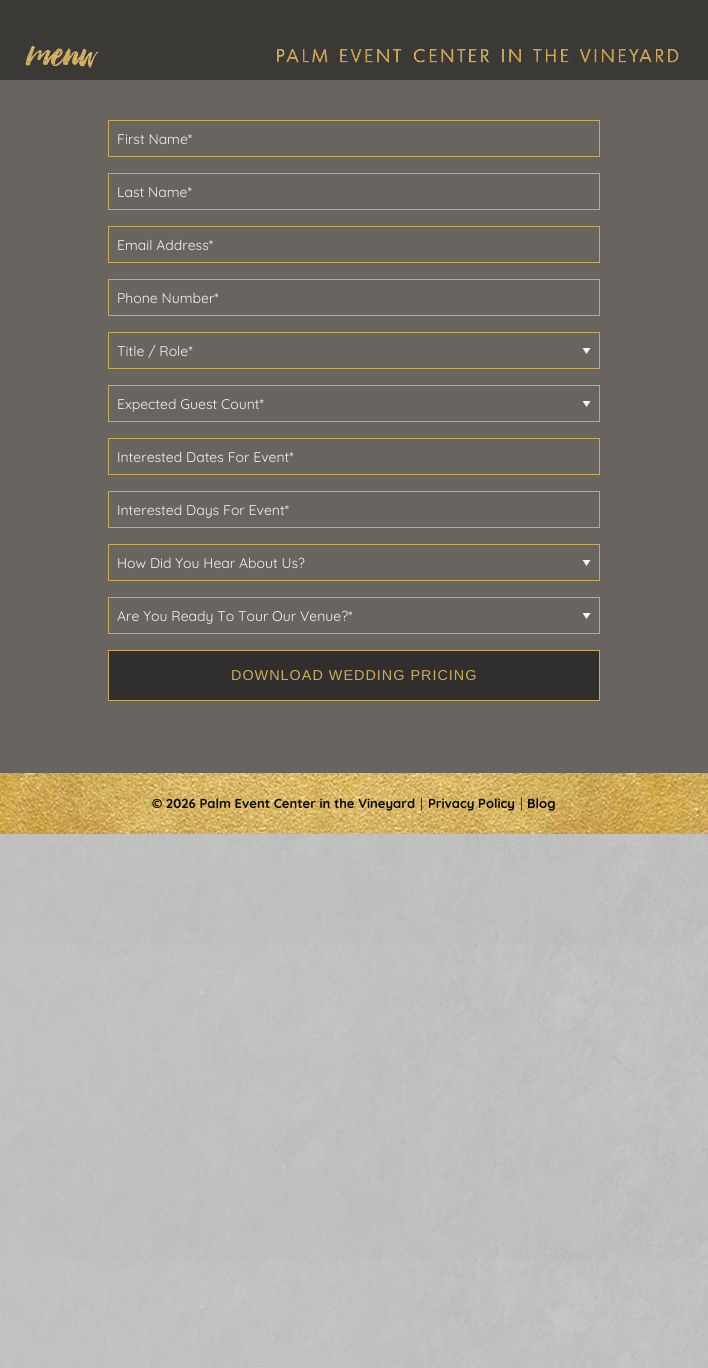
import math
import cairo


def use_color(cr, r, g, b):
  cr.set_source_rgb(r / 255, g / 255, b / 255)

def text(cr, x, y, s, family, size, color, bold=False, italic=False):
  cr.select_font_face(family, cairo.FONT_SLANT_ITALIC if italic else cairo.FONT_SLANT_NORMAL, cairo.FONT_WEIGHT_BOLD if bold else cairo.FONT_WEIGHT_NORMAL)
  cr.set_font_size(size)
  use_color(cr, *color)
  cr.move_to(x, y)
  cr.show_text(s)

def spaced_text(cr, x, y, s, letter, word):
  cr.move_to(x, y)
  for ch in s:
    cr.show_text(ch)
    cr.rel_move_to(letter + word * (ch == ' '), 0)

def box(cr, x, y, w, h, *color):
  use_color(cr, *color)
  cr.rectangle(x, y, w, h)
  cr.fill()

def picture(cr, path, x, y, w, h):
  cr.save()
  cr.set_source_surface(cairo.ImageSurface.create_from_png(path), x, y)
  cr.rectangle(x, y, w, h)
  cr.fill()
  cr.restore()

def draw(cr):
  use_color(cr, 255, 255, 255)
  cr.paint()
  picture(cr, "img_01.png", 0, 834, 708, 534)
  box(cr, 0, 80, 708, 693, 104, 101, 96)
  box(cr, 0, 0, 708, 80, 58, 57, 54)
  picture(cr, "img_02.png", 25, 45, 74, 23)
  picture(cr, "img_03.png", 277, 49, 402, 14)
  cr.rectangle(108.5, 120.5, 491, 36)
  use_color(cr, 204, 170, 90)
  cr.set_line_width(1)
  cr.stroke()
  cr.rectangle(108.5, 173.5, 491, 36)
  cr.stroke()
  cr.rectangle(108.5, 226.5, 491, 36)
  cr.stroke()
  cr.rectangle(108.5, 279.5, 491, 36)
  cr.stroke()
  use_color(cr, 244, 244, 244)
  cr.new_path()
  cr.move_to(582.5, 348)
  cr.line_to(590.5, 348)
  cr.line_to(586.5, 354)
  cr.close_path()
  cr.fill()
  cr.rectangle(108.5, 332.5, 491, 36)
  use_color(cr, 204, 170, 90)
  cr.stroke()
  use_color(cr, 244, 244, 244)
  cr.new_path()
  cr.move_to(582.5, 401)
  cr.line_to(590.5, 401)
  cr.line_to(586.5, 407)
  cr.close_path()
  cr.fill()
  cr.rectangle(108.5, 385.5, 491, 36)
  use_color(cr, 204, 170, 90)
  cr.stroke()
  cr.rectangle(108.5, 438.5, 491, 36)
  cr.stroke()
  cr.rectangle(108.5, 491.5, 491, 36)
  cr.stroke()
  use_color(cr, 244, 244, 244)
  cr.new_path()
  cr.move_to(582.5, 560)
  cr.line_to(590.5, 560)
  cr.line_to(586.5, 566)
  cr.close_path()
  cr.fill()
  cr.rectangle(108.5, 544.5, 491, 36)
  use_color(cr, 204, 170, 90)
  cr.stroke()
  use_color(cr, 244, 244, 244)
  cr.new_path()
  cr.move_to(582.5, 613)
  cr.line_to(590.5, 613)
  cr.line_to(586.5, 619)
  cr.close_path()
  cr.fill()
  cr.rectangle(108.5, 597.5, 491, 36)
  use_color(cr, 204, 170, 90)
  cr.stroke()
  use_color(cr, 48, 47, 46)
  cr.rectangle(108.5, 650.5, 491, 50)
  cr.fill_preserve()
  use_color(cr, 204, 170, 90)
  cr.stroke()
  picture(cr, "img_04.png", 0, 773, 708, 61)
  text(cr, 117, 144, "First Name*", "Quicksand", 14, (244, 244, 244))
  text(cr, 117, 197, "Last Name*", "Quicksand", 14, (244, 244, 244))
  text(cr, 117, 250, "Email Address*", "Quicksand", 14, (244, 244, 244))
  text(cr, 117, 303, "Phone Number*", "Quicksand", 14, (244, 244, 244))
  text(cr, 117, 356, "Title / Role*", "Quicksand", 14, (244, 244, 244))
  text(cr, 117, 409, "Expected Guest Count*", "Quicksand", 14, (244, 244, 244))
  text(cr, 117, 462, "Interested Dates For Event*", "Quicksand", 14, (244, 244, 244))
  text(cr, 117, 515, "Interested Days For Event*", "Quicksand", 14, (244, 244, 244))
  text(cr, 117, 568, "How Did You Hear About Us?", "Quicksand", 14, (244, 244, 244))
  text(cr, 117, 621, "Are You Ready To Tour Our Venue?*", "Quicksand", 14, (244, 244, 244))
  cr.select_font_face("Liberation Sans")
  cr.set_font_size(14.4)
  use_color(cr, 204, 170, 90)
  spaced_text(cr, 231, 680, "DOWNLOAD WEDDING PRICING", 1, 0)
  text(cr, 152, 808, "© 2026 Palm Event Center in the Vineyard", "Quicksand", 13, (10, 10, 10), bold=True)
  text(cr, 420, 808, "|", "Quicksand", 13, (10, 10, 10))
  text(cr, 428, 808, "Privacy Policy", "Quicksand", 13, (10, 10, 10), bold=True)
  text(cr, 520, 808, "|", "Quicksand", 13, (10, 10, 10))
  text(cr, 527, 808, "Blog", "Quicksand", 13, (10, 10, 10), bold=True)


surface = cairo.ImageSurface(cairo.FORMAT_RGB24, 708, 1368)
cr = cairo.Context(surface)
options = cairo.FontOptions()
options.set_hint_metrics(cairo.HINT_METRICS_OFF)
options.set_hint_style(cairo.HINT_STYLE_NONE)
cr.set_font_options(options)
cr.set_miter_limit(4)
draw(cr)
surface.write_to_png("out.png")
